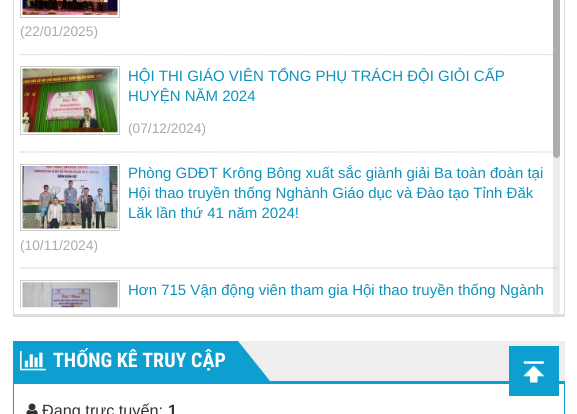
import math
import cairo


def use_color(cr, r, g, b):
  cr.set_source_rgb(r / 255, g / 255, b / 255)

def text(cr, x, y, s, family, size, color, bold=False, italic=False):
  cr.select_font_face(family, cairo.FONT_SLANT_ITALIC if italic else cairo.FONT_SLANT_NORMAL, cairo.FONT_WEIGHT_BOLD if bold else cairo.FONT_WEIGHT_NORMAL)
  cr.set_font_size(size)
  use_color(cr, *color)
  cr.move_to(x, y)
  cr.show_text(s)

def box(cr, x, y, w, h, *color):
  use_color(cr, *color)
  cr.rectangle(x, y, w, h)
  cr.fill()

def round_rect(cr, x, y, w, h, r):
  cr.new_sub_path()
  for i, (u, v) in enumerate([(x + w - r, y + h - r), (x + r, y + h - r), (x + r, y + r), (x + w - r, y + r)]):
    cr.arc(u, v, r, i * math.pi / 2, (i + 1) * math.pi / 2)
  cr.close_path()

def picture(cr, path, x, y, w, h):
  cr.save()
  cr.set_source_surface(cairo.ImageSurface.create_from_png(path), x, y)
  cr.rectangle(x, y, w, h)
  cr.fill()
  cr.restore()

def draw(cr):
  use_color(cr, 255, 255, 255)
  cr.paint()
  box(cr, 564, 0, 1, 316, 221, 221, 221)
  box(cr, 13, 314, 552, 3, 221, 221, 221)
  box(cr, 13, 0, 1, 316, 221, 221, 221)
  cr.new_path()
  cr.move_to(20, 54.5)
  cr.line_to(557.5, 54.5)
  use_color(cr, 204, 204, 204)
  cr.set_line_width(1.2)
  cr.set_dash([1.25, 1.25])
  cr.stroke()
  cr.rectangle(20.5, -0.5, 99, 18)
  cr.set_line_width(1)
  cr.set_dash([])
  cr.stroke()
  picture(cr, "img_01.png", 22, 0, 96, 15)
  cr.new_path()
  cr.move_to(20, 152)
  cr.line_to(557.5, 152)
  cr.set_line_width(1.2)
  cr.set_dash([1.25, 1.25])
  cr.stroke()
  cr.rectangle(20.5, 66.5, 99, 68)
  cr.set_line_width(1)
  cr.set_dash([])
  cr.stroke()
  picture(cr, "img_02.png", 22, 68, 96, 65)
  cr.new_path()
  cr.move_to(20, 268)
  cr.line_to(557.5, 268)
  cr.set_line_width(1.2)
  cr.set_dash([1.25, 1.25])
  cr.stroke()
  cr.rectangle(20.5, 164.5, 99, 66)
  cr.set_line_width(1)
  cr.set_dash([])
  cr.stroke()
  picture(cr, "img_03.png", 22, 166, 96, 63)
  cr.save()
  cr.rectangle(20, 269, 538, 39)
  cr.clip()
  cr.rectangle(20.5, 280.5, 99, 68)
  cr.stroke()
  cr.restore()
  picture(cr, "img_04.png", 22, 282, 96, 26)
  cr.set_source_rgba(0, 0, 0, 0.08)
  round_rect(cr, 553, -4, 7, 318, 3.5)
  cr.fill()
  cr.set_source_rgba(0.6, 0.6, 0.6, 0.75)
  round_rect(cr, 553, -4, 7, 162, 3.5)
  cr.fill()
  box(cr, 238, 341, 327, 40, 238, 238, 238)
  box(cr, 13, 381, 552, 3, 13, 159, 208)
  box(cr, 13, 341, 225, 40, 13, 159, 208)
  picture(cr, "img_05.png", 20, 351, 26, 20)
  cr.new_path()
  cr.move_to(270, 381)
  cr.line_to(238, 381)
  cr.line_to(238, 341)
  cr.close_path()
  cr.fill()
  box(cr, 564, 384, 1, 30, 13, 159, 208)
  box(cr, 13, 384, 1, 30, 13, 159, 208)
  picture(cr, "img_06.png", 26, 403, 12, 11)
  box(cr, 509, 346, 50, 50, 13, 159, 208)
  picture(cr, "img_07.png", 523, 361, 21, 22)
  text(cr, 20, 36, "(22/01/2025)", "Liberation Sans", 13.75, (170, 170, 170))
  text(cr, 128, 81, "HỘI THI GIÁO VIÊN TỔNG PHỤ TRÁCH ĐỘI GIỎI CẤP", "Liberation Sans", 15, (12, 146, 190))
  text(cr, 128, 101, "HUYỆN NĂM 2024", "Liberation Sans", 15, (12, 146, 190))
  text(cr, 128, 133, "(07/12/2024)", "Liberation Sans", 13.75, (170, 170, 170))
  text(cr, 128, 178, "Phòng GDĐT Krông Bông xuất sắc giành giải Ba toàn đoàn tại", "Liberation Sans", 15, (12, 146, 190))
  text(cr, 128, 198, "Hội thao truyền thống Nghành Giáo dục và Đào tạo Tỉnh Đăk", "Liberation Sans", 15, (12, 146, 190))
  text(cr, 128, 218, "Lăk lần thứ 41 năm 2024!", "Liberation Sans", 15, (12, 146, 190))
  text(cr, 20, 250, "(10/11/2024)", "Liberation Sans", 13.75, (170, 170, 170))
  text(cr, 128, 295, "Hơn 715 Vận động viên tham gia Hội thao truyền thống Ngành", "Liberation Sans", 15, (12, 146, 190))
  text(cr, 53, 367, "THỐNG KÊ TRUY CẬP", "Roboto Condensed", 20, (255, 255, 255), bold=True)
  text(cr, 42, 416, "Đang trực tuyến:", "Liberation Sans", 16.25, (51, 51, 51))
  text(cr, 168, 416, "1", "Liberation Sans", 16.25, (51, 51, 51), bold=True)


surface = cairo.ImageSurface(cairo.FORMAT_RGB24, 577, 414)
cr = cairo.Context(surface)
options = cairo.FontOptions()
options.set_hint_metrics(cairo.HINT_METRICS_OFF)
options.set_hint_style(cairo.HINT_STYLE_NONE)
cr.set_font_options(options)
cr.set_miter_limit(4)
draw(cr)
surface.write_to_png("out.png")
